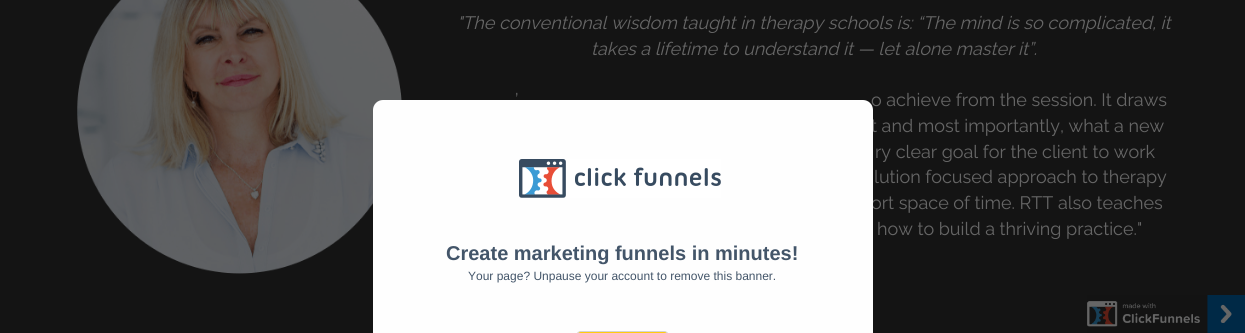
import math
import cairo


def use_color(cr, r, g, b):
  cr.set_source_rgb(r / 255, g / 255, b / 255)

def text(cr, x, y, s, family, size, color, bold=False, italic=False):
  cr.select_font_face(family, cairo.FONT_SLANT_ITALIC if italic else cairo.FONT_SLANT_NORMAL, cairo.FONT_WEIGHT_BOLD if bold else cairo.FONT_WEIGHT_NORMAL)
  cr.set_font_size(size)
  use_color(cr, *color)
  cr.move_to(x, y)
  cr.show_text(s)

def round_rect(cr, x, y, w, h, r):
  cr.new_sub_path()
  for i, (u, v) in enumerate([(x + w - r, y + h - r), (x + r, y + h - r), (x + r, y + r), (x + w - r, y + r)]):
    cr.arc(u, v, r, i * math.pi / 2, (i + 1) * math.pi / 2)
  cr.close_path()

def picture(cr, path, x, y, w, h):
  cr.save()
  cr.set_source_surface(cairo.ImageSurface.create_from_png(path), x, y)
  cr.rectangle(x, y, w, h)
  cr.fill()
  cr.restore()

def draw(cr):
  use_color(cr, 20, 20, 20)
  cr.paint()
  picture(cr, "img_01.png", 77, 0, 325, 274)
  picture(cr, "img_03.png", 1087, 295, 158, 38)
  text(cr, 457, 29, "\"The conventional wisdom taught in therapy schools is: “The mind is so complicated, it", "Raleway Thin", 18, (102, 102, 102), italic=True)
  text(cr, 591, 55, "takes a lifetime to understand it — let alone master it”.", "Raleway Thin", 18, (102, 102, 102), italic=True)
  text(cr, 515, 106, "’", "Raleway Thin", 18, (102, 102, 102))
  text(cr, 871, 106, "o achieve from the session. It draws", "Raleway Thin", 18, (102, 102, 102))
  text(cr, 871, 132, "t and most importantly, what a new", "Raleway Thin", 18, (102, 102, 102))
  text(cr, 875, 158, "ry clear goal for the client to work", "Raleway Thin", 18, (102, 102, 102))
  text(cr, 874, 183, "lution focused approach to therapy", "Raleway Thin", 18, (102, 102, 102))
  text(cr, 871, 209, "ort space of time. RTT also teaches", "Raleway Thin", 18, (102, 102, 102))
  text(cr, 877, 235, "how to build a thriving practice.\"", "Raleway Thin", 18, (102, 102, 102))
  use_color(cr, 254, 254, 254)
  round_rect(cr, 373, 100, 500, 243, 10)
  cr.fill()
  picture(cr, "img_02.png", 519, 159, 202, 39)
  text(cr, 446, 260, "Create marketing funnels in minutes!", "Liberation Sans", 20, (67, 85, 105), bold=True)
  text(cr, 468, 280, "Your page? Unpause your account to remove this banner.", "Liberation Sans", 12, (67, 85, 105))
  use_color(cr, 255, 203, 14)
  round_rect(cr, 576.5, 331.5, 92, 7, 4.5)
  cr.fill_preserve()
  use_color(cr, 212, 212, 212)
  cr.set_line_width(1)
  cr.stroke()


surface = cairo.ImageSurface(cairo.FORMAT_RGB24, 1245, 333)
cr = cairo.Context(surface)
options = cairo.FontOptions()
options.set_hint_metrics(cairo.HINT_METRICS_OFF)
options.set_hint_style(cairo.HINT_STYLE_NONE)
cr.set_font_options(options)
cr.set_miter_limit(4)
draw(cr)
surface.write_to_png("out.png")
